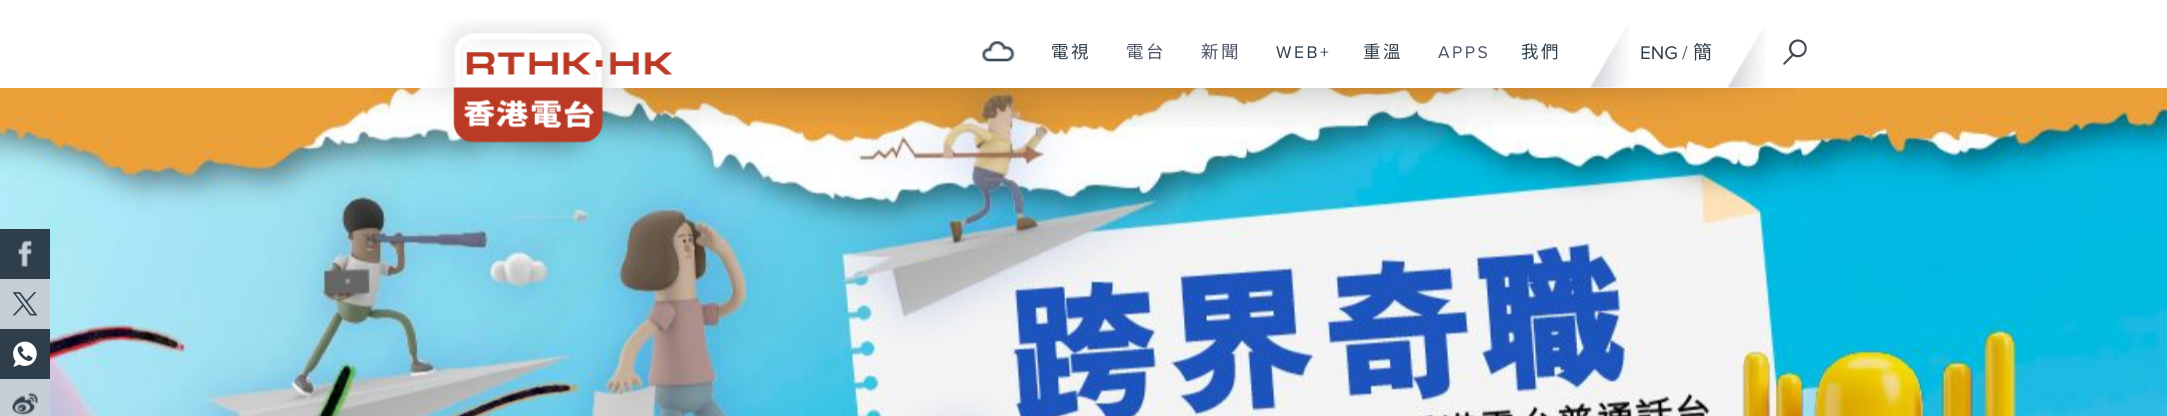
import math
import cairo


def use_color(cr, r, g, b):
  cr.set_source_rgb(r / 255, g / 255, b / 255)

def text(cr, x, y, s, family, size, color, bold=False, italic=False):
  cr.select_font_face(family, cairo.FONT_SLANT_ITALIC if italic else cairo.FONT_SLANT_NORMAL, cairo.FONT_WEIGHT_BOLD if bold else cairo.FONT_WEIGHT_NORMAL)
  cr.set_font_size(size)
  use_color(cr, *color)
  cr.move_to(x, y)
  cr.show_text(s)

def spaced_text(cr, x, y, s, letter, word):
  cr.move_to(x, y)
  for ch in s:
    cr.show_text(ch)
    cr.rel_move_to(letter + word * (ch == ' '), 0)

def box(cr, x, y, w, h, *color):
  use_color(cr, *color)
  cr.rectangle(x, y, w, h)
  cr.fill()

def picture(cr, path, x, y, w, h):
  cr.save()
  cr.set_source_surface(cairo.ImageSurface.create_from_png(path), x, y)
  cr.rectangle(x, y, w, h)
  cr.fill()
  cr.restore()

def draw(cr):
  use_color(cr, 255, 255, 255)
  cr.paint()
  picture(cr, "img_01.png", 430, 18, 243, 70)
  picture(cr, "img_08.png", 0, 88, 2167, 328)
  picture(cr, "img_07.png", 372, 88, 1424, 39)
  picture(cr, "img_02.png", 449, 88, 184, 55)
  picture(cr, "img_03.png", 982, 41, 33, 21)
  picture(cr, "img_04.png", 1590, 24, 39, 64)
  picture(cr, "img_05.png", 1727, 25, 39, 63)
  picture(cr, "img_06.png", 1783, 39, 24, 26)
  box(cr, 0, 229, 50, 50, 46, 62, 74)
  picture(cr, "img_09.png", 18, 240, 14, 27)
  box(cr, 0, 279, 50, 50, 198, 207, 214)
  picture(cr, "img_10.png", 12, 292, 26, 24)
  box(cr, 0, 329, 50, 50, 46, 62, 74)
  picture(cr, "img_11.png", 13, 341, 24, 26)
  box(cr, 0, 379, 50, 37, 198, 207, 214)
  picture(cr, "img_12.png", 12, 392, 26, 24)
  cr.select_font_face("Noto Sans CJK HK")
  cr.set_font_size(17.5)
  use_color(cr, 46, 62, 74)
  spaced_text(cr, 1051, 58, "電視", 2.5, 0)
  use_color(cr, 78, 85, 105)
  spaced_text(cr, 1126, 58, "電台", 2.5, 0)
  spaced_text(cr, 1201, 58, "新聞", 2.5, 0)
  cr.select_font_face("Proxima Nova")
  use_color(cr, 46, 62, 74)
  spaced_text(cr, 1276, 58, "WEB+", 2.5, 0)
  cr.select_font_face("Noto Sans CJK HK")
  spaced_text(cr, 1363, 58, "重溫", 2.5, 0)
  cr.select_font_face("Proxima Nova")
  use_color(cr, 78, 85, 105)
  spaced_text(cr, 1438, 58, "APPS", 2.5, 0)
  cr.select_font_face("Noto Sans CJK HK")
  use_color(cr, 46, 62, 74)
  spaced_text(cr, 1521, 58, "我們", 2.5, 0)
  text(cr, 1640, 59, "ENG", "Proxima Nova", 19, (46, 62, 74))
  text(cr, 1682, 59, "/", "Proxima Nova", 19, (78, 85, 105))
  text(cr, 1693, 59, "簡", "Noto Sans CJK HK", 19, (46, 62, 74))


surface = cairo.ImageSurface(cairo.FORMAT_RGB24, 2167, 416)
cr = cairo.Context(surface)
options = cairo.FontOptions()
options.set_hint_metrics(cairo.HINT_METRICS_OFF)
options.set_hint_style(cairo.HINT_STYLE_NONE)
cr.set_font_options(options)
cr.set_miter_limit(4)
draw(cr)
surface.write_to_png("out.png")
